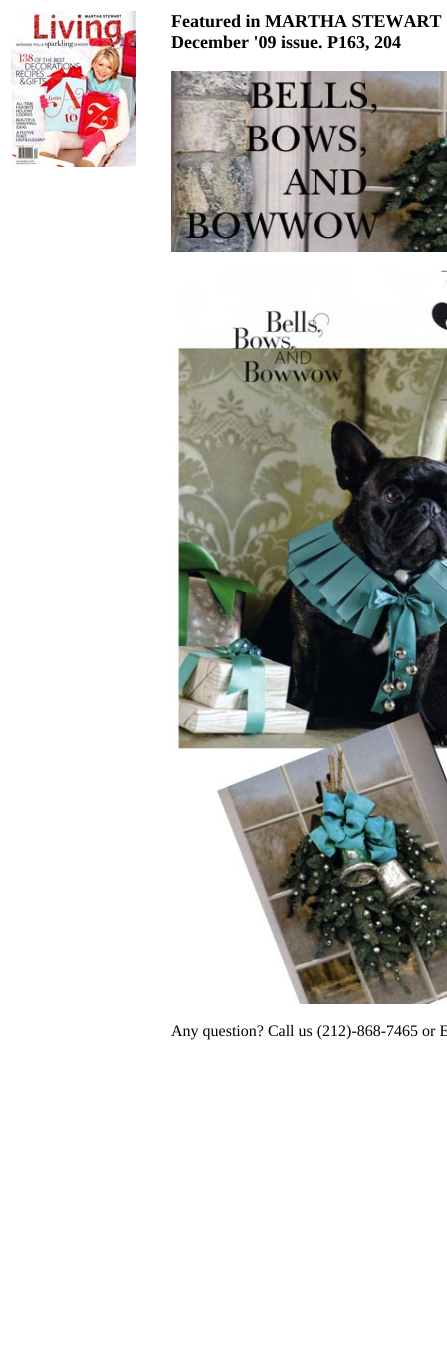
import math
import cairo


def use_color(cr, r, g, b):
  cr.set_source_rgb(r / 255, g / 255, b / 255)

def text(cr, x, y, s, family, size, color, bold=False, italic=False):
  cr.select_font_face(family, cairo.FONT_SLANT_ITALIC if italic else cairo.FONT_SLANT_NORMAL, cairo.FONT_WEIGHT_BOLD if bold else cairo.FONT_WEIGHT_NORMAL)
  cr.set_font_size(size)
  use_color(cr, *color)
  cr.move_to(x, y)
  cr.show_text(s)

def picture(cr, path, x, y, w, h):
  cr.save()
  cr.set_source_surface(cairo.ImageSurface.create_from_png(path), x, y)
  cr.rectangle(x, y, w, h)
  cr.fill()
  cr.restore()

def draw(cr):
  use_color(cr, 255, 255, 255)
  cr.paint()
  picture(cr, "img_01.png", 11, 11, 125, 156)
  picture(cr, "img_02.png", 171, 71, 276, 181)
  picture(cr, "img_03.png", 171, 267, 276, 737)
  text(cr, 171, 27, "Featured in MARTHA STEWART", "Liberation Serif", 18, (0, 0, 0), bold=True)
  text(cr, 171, 48, "December '09 issue. P163, 204", "Liberation Serif", 18, (0, 0, 0), bold=True)
  text(cr, 171, 1036, "Any question? Call us (212)-868-7465 or E", "Liberation Serif", 16, (0, 0, 0))


surface = cairo.ImageSurface(cairo.FORMAT_RGB24, 447, 1372)
cr = cairo.Context(surface)
options = cairo.FontOptions()
options.set_hint_metrics(cairo.HINT_METRICS_OFF)
options.set_hint_style(cairo.HINT_STYLE_NONE)
cr.set_font_options(options)
cr.set_miter_limit(4)
draw(cr)
surface.write_to_png("out.png")
